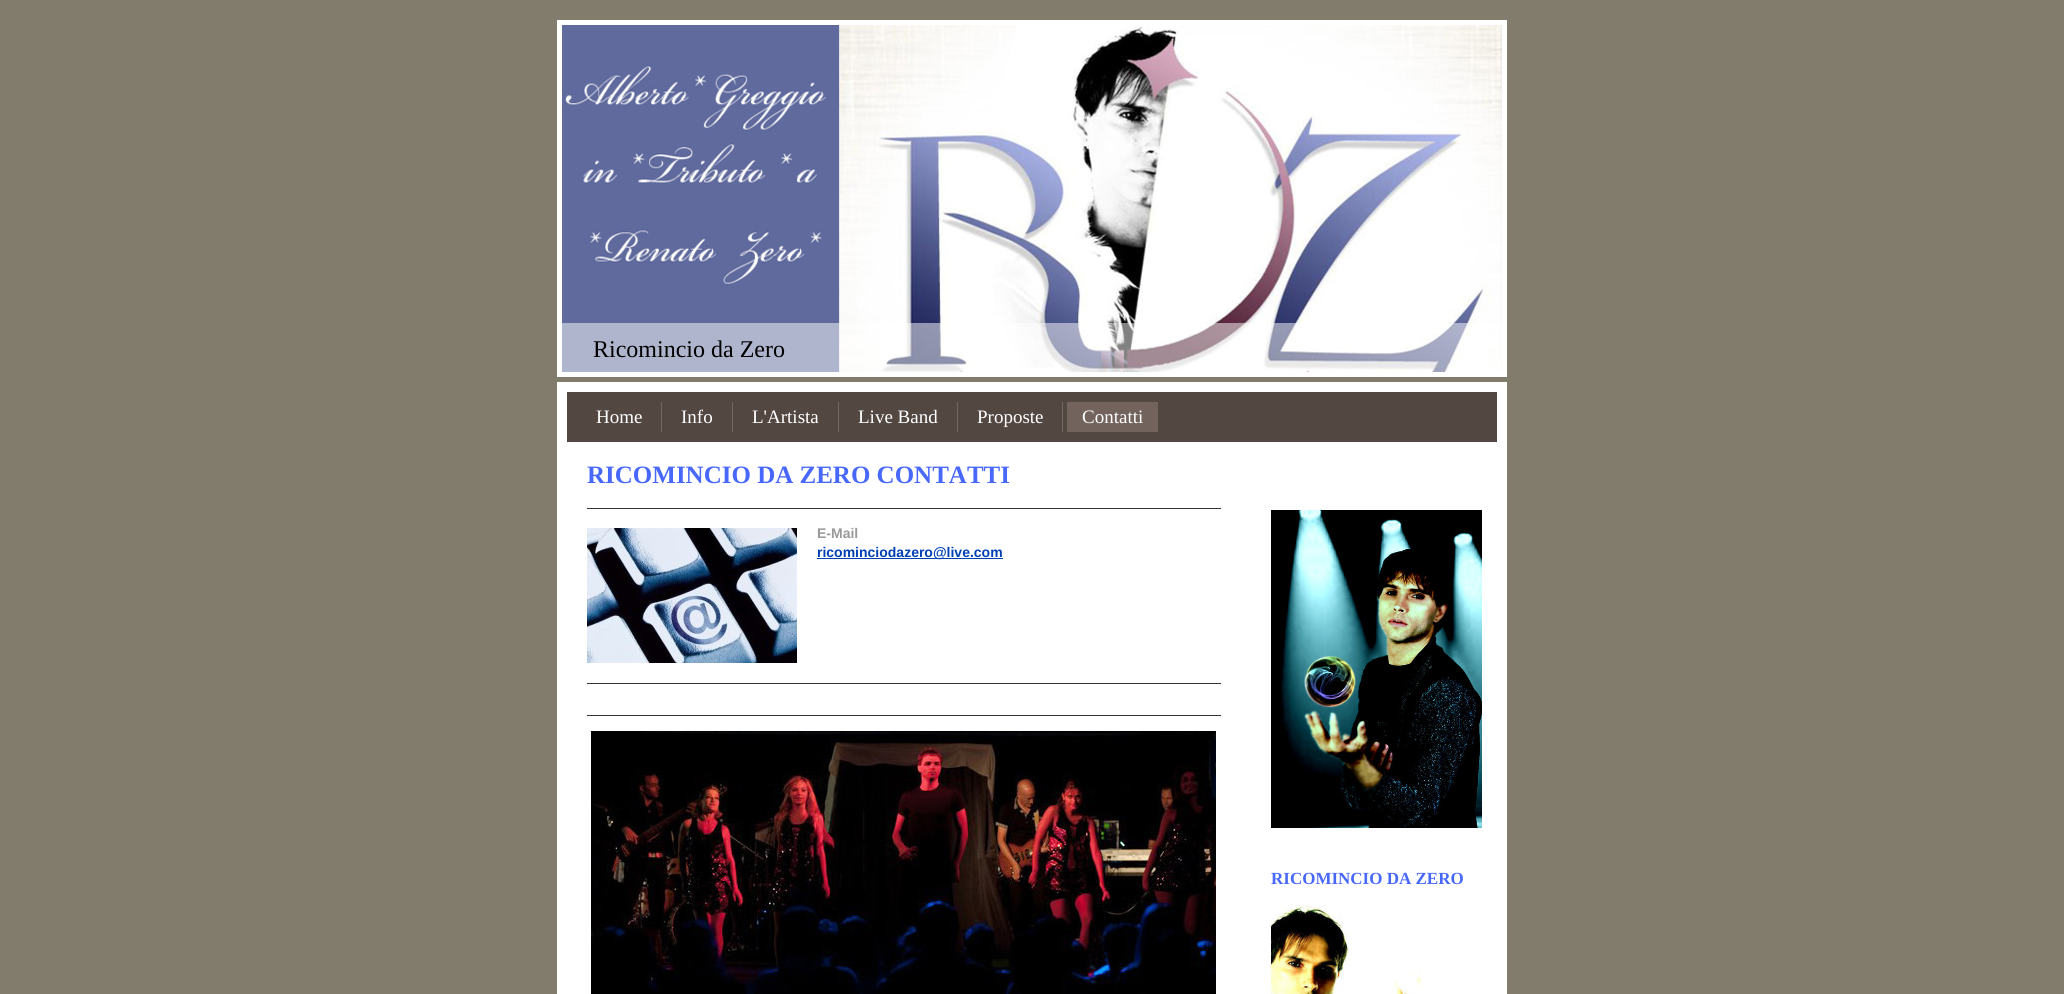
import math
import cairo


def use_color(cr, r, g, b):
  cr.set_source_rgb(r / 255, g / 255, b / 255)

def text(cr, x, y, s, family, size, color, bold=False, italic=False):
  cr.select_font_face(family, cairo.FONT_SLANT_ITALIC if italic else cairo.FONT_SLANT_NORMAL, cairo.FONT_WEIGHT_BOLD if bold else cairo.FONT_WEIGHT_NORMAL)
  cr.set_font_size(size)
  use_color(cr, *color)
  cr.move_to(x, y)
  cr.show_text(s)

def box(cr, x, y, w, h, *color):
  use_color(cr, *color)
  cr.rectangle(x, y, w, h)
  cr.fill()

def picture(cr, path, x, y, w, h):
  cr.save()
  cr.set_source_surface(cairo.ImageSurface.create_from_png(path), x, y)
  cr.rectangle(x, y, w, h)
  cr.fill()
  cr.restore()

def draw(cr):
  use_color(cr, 130, 124, 109)
  cr.paint()
  box(cr, 557, 20, 950, 357, 255, 255, 255)
  picture(cr, "img_01.png", 562, 25, 940, 347)
  cr.set_source_rgba(1, 1, 1, 0.5)
  cr.rectangle(562, 323, 940, 49)
  cr.fill()
  box(cr, 557, 382, 950, 612, 255, 255, 255)
  box(cr, 567, 392, 930, 50, 83, 71, 65)
  box(cr, 661, 402, 1, 30, 115, 105, 100)
  box(cr, 732, 402, 1, 30, 115, 105, 100)
  box(cr, 838, 402, 1, 30, 115, 105, 100)
  box(cr, 957, 402, 1, 30, 115, 105, 100)
  box(cr, 1062, 402, 1, 30, 115, 105, 100)
  box(cr, 1067, 402, 91, 30, 114, 99, 93)
  box(cr, 587, 508, 634, 1, 51, 51, 51)
  picture(cr, "img_02.png", 587, 528, 210, 135)
  box(cr, 817, 558, 186, 1, 0, 64, 182)
  box(cr, 587, 683, 634, 1, 51, 51, 51)
  box(cr, 587, 715, 634, 1, 51, 51, 51)
  picture(cr, "img_03.png", 591, 731, 625, 263)
  picture(cr, "img_04.png", 1271, 510, 211, 318)
  picture(cr, "img_05.png", 1271, 902, 150, 92)
  text(cr, 593, 357, "Ricomincio da Zero", "Liberation Serif", 24, (0, 0, 0))
  text(cr, 596, 423, "Home", "Liberation Serif", 19, (255, 255, 255))
  text(cr, 681, 423, "Info", "Liberation Serif", 19, (255, 255, 255))
  text(cr, 752, 423, "L'Artista", "Liberation Serif", 19, (255, 255, 255))
  text(cr, 858, 423, "Live Band", "Liberation Serif", 19, (255, 255, 255))
  text(cr, 977, 423, "Proposte", "Liberation Serif", 19, (255, 255, 255))
  text(cr, 1082, 423, "Contatti", "Liberation Serif", 19, (255, 255, 255))
  text(cr, 587, 483, "RICOMINCIO DA ZERO CONTATTI", "Liberation Serif", 25, (72, 104, 251), bold=True)
  text(cr, 817, 538, "E-Mail", "Liberation Sans", 14, (153, 153, 153), bold=True)
  text(cr, 817, 557, "ricominciodazero@live.com", "Liberation Sans", 14, (0, 64, 182), bold=True)
  text(cr, 1271, 884, "RICOMINCIO DA ZERO", "Liberation Serif", 17, (72, 104, 251), bold=True)


surface = cairo.ImageSurface(cairo.FORMAT_RGB24, 2064, 994)
cr = cairo.Context(surface)
options = cairo.FontOptions()
options.set_hint_metrics(cairo.HINT_METRICS_OFF)
options.set_hint_style(cairo.HINT_STYLE_NONE)
cr.set_font_options(options)
cr.set_miter_limit(4)
draw(cr)
surface.write_to_png("out.png")
